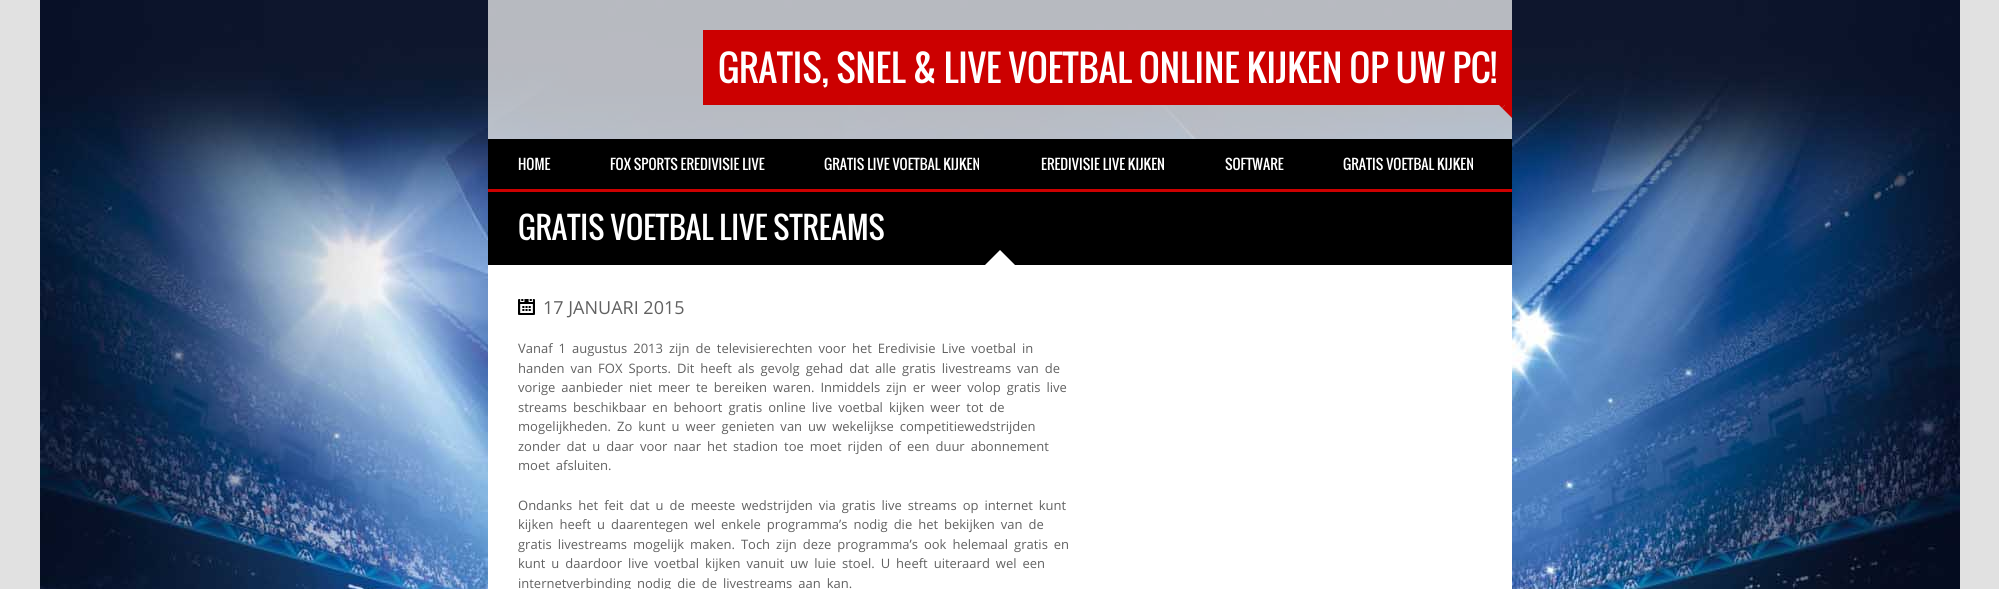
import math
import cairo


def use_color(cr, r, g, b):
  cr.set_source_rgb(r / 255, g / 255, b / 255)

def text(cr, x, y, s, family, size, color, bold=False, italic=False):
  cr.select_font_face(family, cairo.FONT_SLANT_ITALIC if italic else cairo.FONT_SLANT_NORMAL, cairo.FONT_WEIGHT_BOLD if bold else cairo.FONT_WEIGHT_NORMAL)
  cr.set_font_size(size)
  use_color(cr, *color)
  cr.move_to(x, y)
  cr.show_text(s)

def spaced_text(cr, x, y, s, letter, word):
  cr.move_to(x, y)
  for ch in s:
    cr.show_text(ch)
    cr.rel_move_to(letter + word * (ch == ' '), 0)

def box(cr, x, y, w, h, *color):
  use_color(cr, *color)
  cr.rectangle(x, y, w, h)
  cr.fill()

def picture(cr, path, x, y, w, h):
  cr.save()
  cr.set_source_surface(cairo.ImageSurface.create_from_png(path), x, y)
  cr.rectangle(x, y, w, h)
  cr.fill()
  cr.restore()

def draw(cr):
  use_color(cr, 225, 225, 225)
  cr.paint()
  picture(cr, "img_01.png", 40, 0, 1920, 589)
  cr.set_source_rgba(1, 1, 1, 0.7)
  cr.rectangle(488, 0, 1024, 139)
  cr.fill()
  box(cr, 703, 30, 809, 75, 204, 0, 0)
  cr.new_path()
  cr.move_to(1492, 98)
  cr.line_to(1512, 98)
  cr.line_to(1502, 108)
  cr.close_path()
  cr.fill()
  cr.new_path()
  cr.move_to(1512, 98)
  cr.line_to(1512, 118)
  cr.line_to(1502, 108)
  cr.close_path()
  cr.fill()
  box(cr, 488, 139, 1024, 50, 0, 0, 0)
  box(cr, 488, 189, 1024, 3, 204, 0, 0)
  box(cr, 488, 192, 1024, 73, 0, 0, 0)
  box(cr, 488, 265, 1024, 324, 255, 255, 255)
  cr.new_path()
  cr.move_to(1015, 265)
  cr.line_to(985, 265)
  cr.line_to(1000, 250)
  cr.close_path()
  cr.fill()
  picture(cr, "img_02.png", 518, 299, 17, 16)
  text(cr, 718, 83, "GRATIS, SNEL & LIVE VOETBAL ONLINE KIJKEN OP UW PC!", "Oswald", 36, (255, 255, 255))
  text(cr, 518, 170, "HOME", "Oswald", 14, (255, 255, 255))
  text(cr, 610, 170, "FOX SPORTS EREDIVISIE LIVE", "Oswald", 14, (255, 255, 255))
  text(cr, 824, 170, "GRATIS LIVE VOETBAL KIJKEN", "Oswald", 14, (255, 255, 255))
  text(cr, 1041, 170, "EREDIVISIE LIVE KIJKEN", "Oswald", 14, (255, 255, 255))
  text(cr, 1225, 170, "SOFTWARE", "Oswald", 14, (255, 255, 255))
  text(cr, 1343, 170, "GRATIS VOETBAL KIJKEN", "Oswald", 14, (255, 255, 255))
  text(cr, 518, 240, "GRATIS VOETBAL LIVE STREAMS", "Oswald", 30, (255, 255, 255))
  text(cr, 543, 314, "17 JANUARI 2015", "Open Sans", 18, (97, 97, 97))
  cr.set_font_size(13)
  spaced_text(cr, 518, 353, "Vanaf 1 augustus 2013 zijn de televisierechten voor het Eredivisie Live voetbal in", 0, 2.6)
  spaced_text(cr, 518, 373, "handen van FOX Sports. Dit heeft als gevolg gehad dat alle gratis livestreams van de", 0, 2.6)
  spaced_text(cr, 518, 392, "vorige aanbieder niet meer te bereiken waren. Inmiddels zijn er weer volop gratis live", 0, 2.6)
  spaced_text(cr, 518, 412, "streams beschikbaar en behoort gratis online live voetbal kijken weer tot de", 0, 2.6)
  spaced_text(cr, 518, 431, "mogelijkheden. Zo kunt u weer genieten van uw wekelijkse competitiewedstrijden", 0, 2.6)
  spaced_text(cr, 518, 451, "zonder dat u daar voor naar het stadion toe moet rijden of een duur abonnement", 0, 2.6)
  spaced_text(cr, 518, 470, "moet afsluiten.", 0, 2.6)
  spaced_text(cr, 518, 510, "Ondanks het feit dat u de meeste wedstrijden via gratis live streams op internet kunt", 0, 2.6)
  spaced_text(cr, 518, 529, "kijken heeft u daarentegen wel enkele programma’s nodig die het bekijken van de", 0, 2.6)
  spaced_text(cr, 518, 549, "gratis livestreams mogelijk maken. Toch zijn deze programma’s ook helemaal gratis en", 0, 2.6)
  spaced_text(cr, 518, 568, "kunt u daardoor live voetbal kijken vanuit uw luie stoel. U heeft uiteraard wel een", 0, 2.6)
  spaced_text(cr, 518, 588, "internetverbinding nodig die de livestreams aan kan.", 0, 2.6)


surface = cairo.ImageSurface(cairo.FORMAT_RGB24, 1999, 589)
cr = cairo.Context(surface)
options = cairo.FontOptions()
options.set_hint_metrics(cairo.HINT_METRICS_OFF)
options.set_hint_style(cairo.HINT_STYLE_NONE)
cr.set_font_options(options)
cr.set_miter_limit(4)
draw(cr)
surface.write_to_png("out.png")
